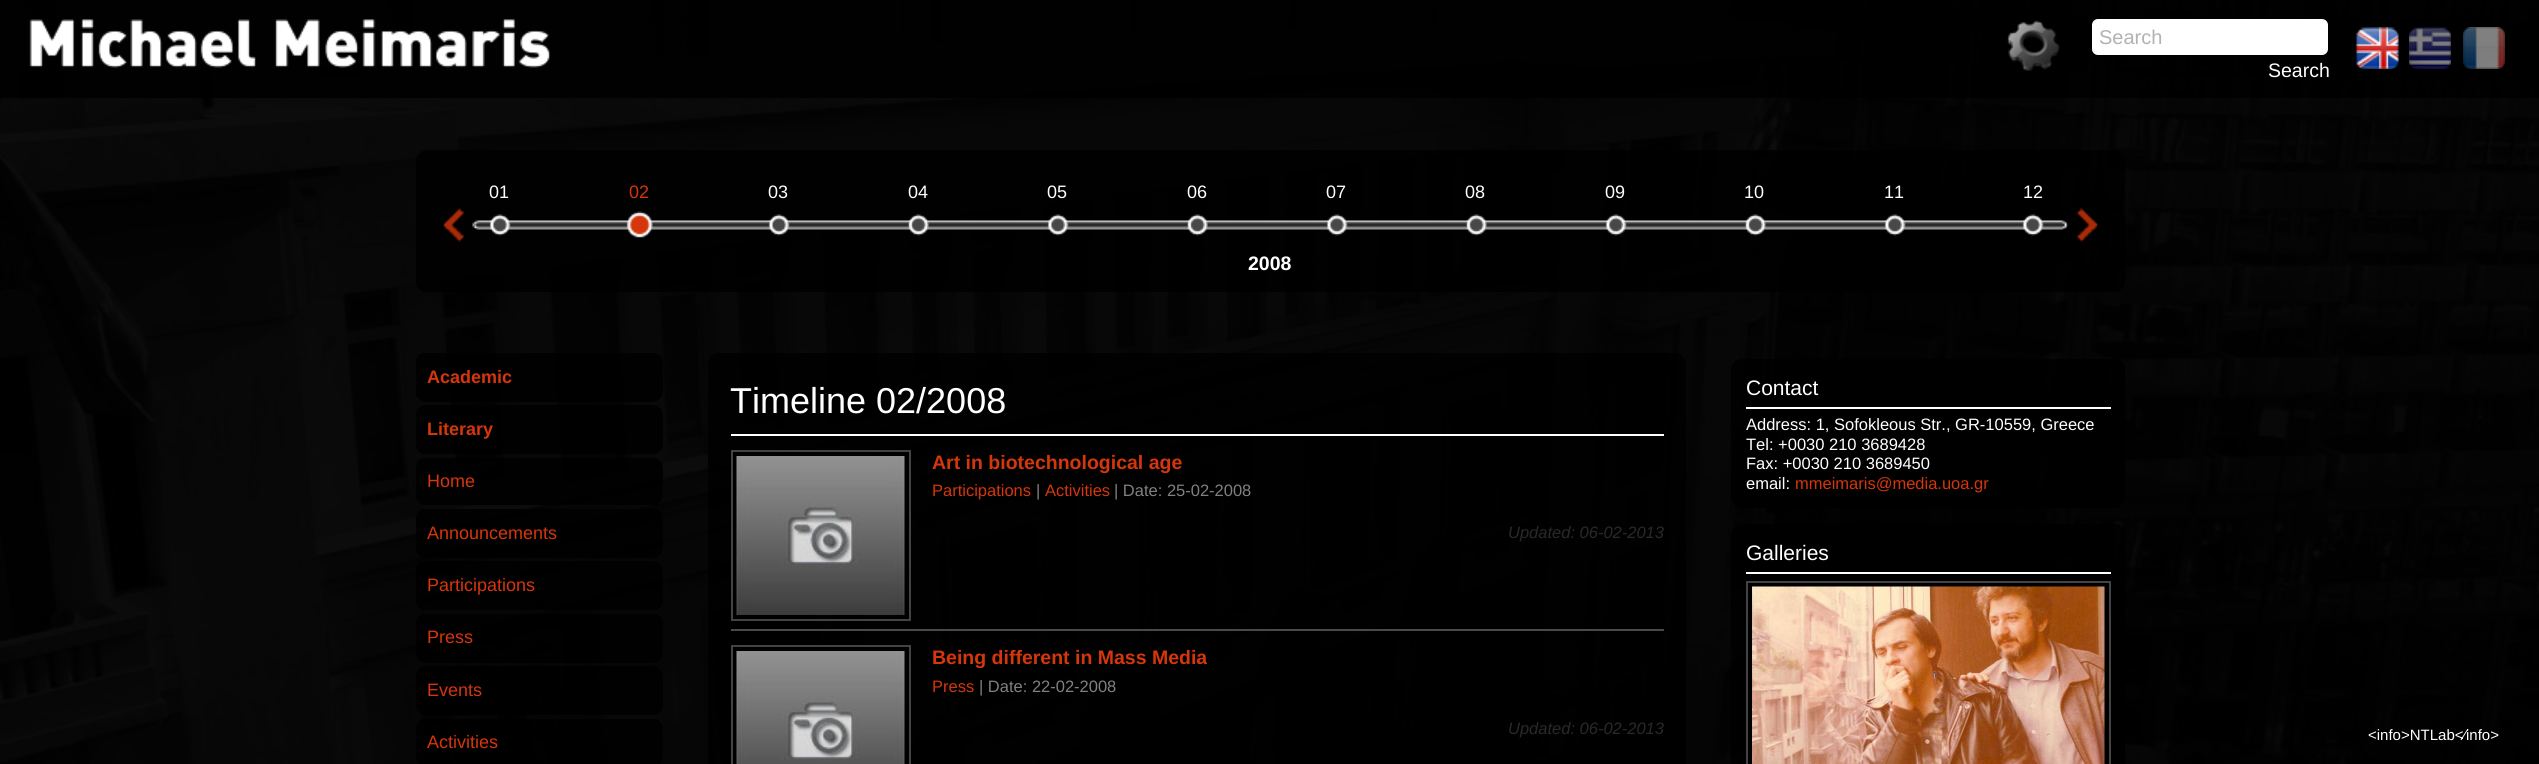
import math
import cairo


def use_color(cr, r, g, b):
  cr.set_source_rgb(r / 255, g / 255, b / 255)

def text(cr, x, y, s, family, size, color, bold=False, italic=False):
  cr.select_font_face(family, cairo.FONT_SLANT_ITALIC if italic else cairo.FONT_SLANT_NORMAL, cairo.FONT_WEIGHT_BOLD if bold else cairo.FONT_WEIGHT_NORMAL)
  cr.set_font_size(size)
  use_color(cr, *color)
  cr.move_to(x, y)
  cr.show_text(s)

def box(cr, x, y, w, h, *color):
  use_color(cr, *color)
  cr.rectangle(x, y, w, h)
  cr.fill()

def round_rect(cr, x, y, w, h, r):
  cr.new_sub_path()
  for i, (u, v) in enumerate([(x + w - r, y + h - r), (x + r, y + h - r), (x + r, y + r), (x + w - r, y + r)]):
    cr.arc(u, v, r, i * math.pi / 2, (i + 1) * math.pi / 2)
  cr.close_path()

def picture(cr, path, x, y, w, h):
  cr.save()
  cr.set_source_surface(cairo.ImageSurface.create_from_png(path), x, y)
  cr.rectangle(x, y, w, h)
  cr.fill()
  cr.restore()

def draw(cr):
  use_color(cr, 0, 0, 0)
  cr.paint()
  picture(cr, "img_01.png", 0, 0, 2539, 764)
  cr.set_source_rgba(0, 0, 0, 0.9)
  cr.rectangle(0, 0, 2539, 98)
  cr.fill()
  picture(cr, "img_02.png", 29, 19, 522, 49)
  picture(cr, "img_03.png", 2007, 20, 53, 51)
  use_color(cr, 255, 255, 255)
  round_rect(cr, 2091, 18, 238, 38, 7)
  cr.fill_preserve()
  use_color(cr, 0, 0, 0)
  cr.stroke()
  picture(cr, "img_04.png", 2356, 27, 43, 42)
  picture(cr, "img_05.png", 2409, 27, 42, 42)
  picture(cr, "img_06.png", 2463, 27, 42, 42)
  picture(cr, "img_07.png", 416, 150, 1709, 142)
  picture(cr, "img_08.png", 472, 220, 1597, 10)
  picture(cr, "img_09.png", 489, 214, 22, 22)
  picture(cr, "img_10.png", 626, 211, 27, 27)
  picture(cr, "img_11.png", 768, 214, 22, 22)
  picture(cr, "img_12.png", 907, 214, 22, 22)
  picture(cr, "img_13.png", 1047, 214, 22, 22)
  picture(cr, "img_14.png", 1186, 214, 22, 22)
  picture(cr, "img_15.png", 1326, 214, 22, 22)
  picture(cr, "img_16.png", 1465, 214, 22, 22)
  picture(cr, "img_17.png", 1605, 214, 22, 22)
  picture(cr, "img_18.png", 1744, 214, 22, 22)
  picture(cr, "img_13.png", 1884, 214, 22, 22)
  picture(cr, "img_13.png", 2022, 214, 22, 22)
  picture(cr, "img_19.png", 443, 207, 21, 35)
  picture(cr, "img_20.png", 2077, 207, 21, 35)
  picture(cr, "img_21.png", 416, 353, 247, 49)
  picture(cr, "img_22.png", 416, 405, 247, 49)
  picture(cr, "img_23.png", 416, 458, 247, 47)
  picture(cr, "img_24.png", 416, 509, 247, 49)
  picture(cr, "img_25.png", 416, 561, 247, 49)
  picture(cr, "img_26.png", 416, 614, 247, 49)
  picture(cr, "img_27.png", 416, 666, 247, 49)
  picture(cr, "img_28.png", 416, 719, 247, 45)
  picture(cr, "img_29.png", 708, 353, 978, 411)
  box(cr, 731, 434, 933, 2, 255, 255, 255)
  cr.rectangle(732, 451, 178, 169)
  use_color(cr, 67, 67, 67)
  cr.stroke()
  picture(cr, "img_30.png", 736, 456, 169, 159)
  box(cr, 731, 629, 933, 2, 74, 74, 74)
  cr.rectangle(732, 646, 178, 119)
  use_color(cr, 67, 67, 67)
  cr.stroke()
  picture(cr, "img_31.png", 736, 651, 169, 113)
  picture(cr, "img_32.png", 1731, 359, 394, 149)
  box(cr, 1746, 407, 365, 2, 255, 255, 255)
  picture(cr, "img_33.png", 1731, 524, 394, 240)
  box(cr, 1746, 572, 365, 2, 255, 255, 255)
  cr.rectangle(1747, 582, 363, 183)
  use_color(cr, 67, 67, 67)
  cr.stroke()
  picture(cr, "img_34.png", 1752, 586, 353, 178)
  text(cr, 2099, 44, "Search", "Liberation Sans", 20, (178, 178, 178))
  text(cr, 2268, 77, "Search", "Liberation Sans", 19.5, (255, 255, 255))
  text(cr, 489, 198, "01", "Liberation Sans", 18, (255, 255, 255))
  text(cr, 629, 198, "02", "Liberation Sans", 18, (213, 54, 11))
  text(cr, 768, 198, "03", "Liberation Sans", 18, (255, 255, 255))
  text(cr, 908, 198, "04", "Liberation Sans", 18, (255, 255, 255))
  text(cr, 1047, 198, "05", "Liberation Sans", 18, (255, 255, 255))
  text(cr, 1187, 198, "06", "Liberation Sans", 18, (255, 255, 255))
  text(cr, 1326, 198, "07", "Liberation Sans", 18, (255, 255, 255))
  text(cr, 1465, 198, "08", "Liberation Sans", 18, (255, 255, 255))
  text(cr, 1605, 198, "09", "Liberation Sans", 18, (255, 255, 255))
  text(cr, 1744, 198, "10", "Liberation Sans", 18, (255, 255, 255))
  text(cr, 1884, 198, "11", "Liberation Sans", 18, (255, 255, 255))
  text(cr, 2023, 198, "12", "Liberation Sans", 18, (255, 255, 255))
  text(cr, 1248, 270, "2008", "Liberation Sans", 19.5, (255, 255, 255), bold=True)
  text(cr, 427, 383, "Academic", "Liberation Sans", 18, (213, 54, 11), bold=True)
  text(cr, 427, 435, "Literary", "Liberation Sans", 18, (213, 54, 11), bold=True)
  text(cr, 427, 487, "Home", "Liberation Sans", 18, (213, 54, 11))
  text(cr, 427, 539, "Announcements", "Liberation Sans", 18, (213, 54, 11))
  text(cr, 427, 591, "Participations", "Liberation Sans", 18, (213, 54, 11))
  text(cr, 427, 643, "Press", "Liberation Sans", 18, (213, 54, 11))
  text(cr, 427, 696, "Events", "Liberation Sans", 18, (213, 54, 11))
  text(cr, 427, 748, "Activities", "Liberation Sans", 18, (213, 54, 11))
  text(cr, 730, 413, "Timeline 02/2008", "Liberation Sans", 36, (255, 255, 255))
  text(cr, 932, 469, "Art in biotechnological age", "Liberation Sans", 19.5, (213, 54, 11), bold=True)
  text(cr, 932, 496, "Participations", "Liberation Sans", 16.5, (213, 54, 11))
  text(cr, 1036, 496, "|", "Liberation Sans", 16.5, (129, 129, 129))
  text(cr, 1045, 496, "Activities", "Liberation Sans", 16.5, (213, 54, 11))
  text(cr, 1114, 496, "| Date: 25-02-2008", "Liberation Sans", 16.5, (129, 129, 129))
  text(cr, 1508, 538, "Updated: 06-02-2013", "Liberation Sans", 16.5, (41, 41, 41), italic=True)
  text(cr, 932, 664, "Being different in Mass Media", "Liberation Sans", 19.5, (213, 54, 11), bold=True)
  text(cr, 932, 692, "Press", "Liberation Sans", 16.5, (213, 54, 11))
  text(cr, 979, 692, "| Date: 22-02-2008", "Liberation Sans", 16.5, (129, 129, 129))
  text(cr, 1508, 734, "Updated: 06-02-2013", "Liberation Sans", 16.5, (41, 41, 41), italic=True)
  text(cr, 1746, 395, "Contact", "Liberation Sans", 21, (255, 255, 255))
  text(cr, 1746, 430, "Address: 1, Sofokleous Str., GR-10559, Greece", "Liberation Sans", 16.5, (255, 255, 255))
  text(cr, 1746, 450, "Tel: +0030 210 3689428", "Liberation Sans", 16.5, (255, 255, 255))
  text(cr, 1746, 469, "Fax: +0030 210 3689450", "Liberation Sans", 16.5, (255, 255, 255))
  text(cr, 1746, 489, "email:", "Liberation Sans", 16.5, (255, 255, 255))
  text(cr, 1795, 489, "mmeimaris@media.uoa.gr", "Liberation Sans", 16.5, (213, 54, 11))
  text(cr, 1746, 560, "Galleries", "Liberation Sans", 21, (255, 255, 255))
  text(cr, 2368, 740, "<info>NTLab<⁄info>", "Liberation Sans", 15, (255, 255, 255))


surface = cairo.ImageSurface(cairo.FORMAT_RGB24, 2539, 764)
cr = cairo.Context(surface)
options = cairo.FontOptions()
options.set_hint_metrics(cairo.HINT_METRICS_OFF)
options.set_hint_style(cairo.HINT_STYLE_NONE)
cr.set_font_options(options)
cr.set_miter_limit(4)
draw(cr)
surface.write_to_png("out.png")
